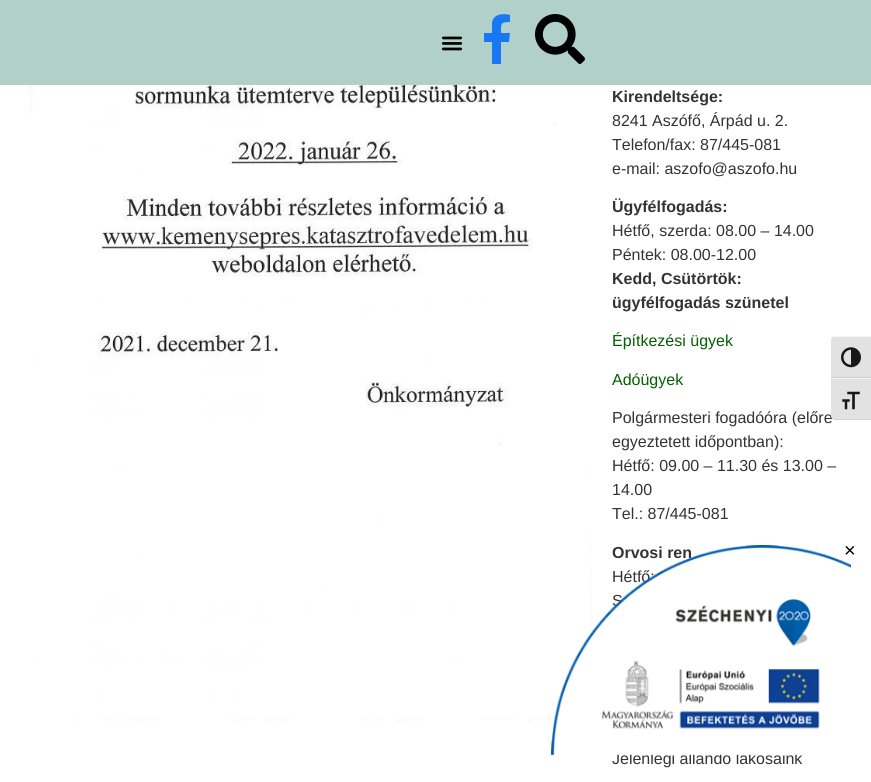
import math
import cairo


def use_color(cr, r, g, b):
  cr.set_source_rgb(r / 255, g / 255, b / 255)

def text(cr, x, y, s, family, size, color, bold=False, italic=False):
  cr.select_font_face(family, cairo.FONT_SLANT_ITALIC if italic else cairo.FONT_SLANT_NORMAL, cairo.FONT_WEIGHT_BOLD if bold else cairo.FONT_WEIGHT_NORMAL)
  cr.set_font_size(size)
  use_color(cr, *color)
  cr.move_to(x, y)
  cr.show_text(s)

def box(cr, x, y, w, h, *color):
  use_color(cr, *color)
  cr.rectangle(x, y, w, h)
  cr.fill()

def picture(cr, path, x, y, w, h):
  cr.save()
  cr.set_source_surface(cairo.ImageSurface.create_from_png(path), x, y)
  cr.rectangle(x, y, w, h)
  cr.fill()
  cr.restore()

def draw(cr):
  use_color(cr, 255, 255, 255)
  cr.paint()
  box(cr, 0, 0, 871, 85, 176, 208, 201)
  picture(cr, "img_01.png", 441, 36, 22, 15)
  use_color(cr, 24, 119, 242)
  cr.new_path()
  cr.move_to(509, 42)
  cr.line_to(510, 33)
  cr.line_to(501, 33)
  cr.curve_to(501, 24, 500, 22, 510, 22)
  cr.line_to(510, 15)
  cr.curve_to(503, 13, 493, 14, 492, 23)
  cr.line_to(492, 33)
  cr.line_to(484, 33)
  cr.line_to(484, 42)
  cr.line_to(492, 42)
  cr.line_to(492, 64)
  cr.line_to(501, 64)
  cr.line_to(501, 42)
  cr.close_path()
  cr.fill()
  picture(cr, "img_02.png", 535, 14, 50, 50)
  picture(cr, "img_03.png", 30, 85, 562, 638)
  use_color(cr, 226, 226, 226)
  cr.new_path()
  cr.move_to(835, 336)
  cr.line_to(871, 336)
  cr.line_to(871, 378)
  cr.line_to(831, 378)
  cr.line_to(831, 340)
  cr.curve_to(831, 338, 833, 336, 835, 336)
  cr.close_path()
  cr.fill()
  use_color(cr, 245, 245, 245)
  cr.new_path()
  cr.move_to(835, 337)
  cr.line_to(871, 337)
  cr.line_to(871, 336)
  cr.line_to(835, 336)
  cr.curve_to(833, 336, 831, 338, 831, 340)
  cr.curve_to(831, 338, 833, 337, 835, 337)
  cr.close_path()
  cr.fill()
  box(cr, 831, 377, 40, 1, 210, 210, 210)
  picture(cr, "img_04.png", 841, 347, 20, 21)
  text(cr, 612, 102, "Kirendeltsége:", "Liberation Sans", 16, (51, 51, 51), bold=True)
  text(cr, 612, 126, "8241 Aszófő, Árpád u. 2.", "Liberation Sans", 16, (51, 51, 51))
  text(cr, 612, 150, "Telefon/fax: 87/445-081", "Liberation Sans", 16, (51, 51, 51))
  text(cr, 612, 174, "e-mail: aszofo@aszofo.hu", "Liberation Sans", 16, (51, 51, 51))
  text(cr, 612, 212, "Ügyfélfogadás:", "Liberation Sans", 16, (51, 51, 51), bold=True)
  text(cr, 612, 236, "Hétfő, szerda: 08.00 – 14.00", "Liberation Sans", 16, (51, 51, 51))
  text(cr, 612, 260, "Péntek: 08.00-12.00", "Liberation Sans", 16, (51, 51, 51))
  text(cr, 612, 284, "Kedd, Csütörtök:", "Liberation Sans", 16, (51, 51, 51), bold=True)
  text(cr, 612, 308, "ügyfélfogadás szünetel", "Liberation Sans", 16, (51, 51, 51), bold=True)
  text(cr, 612, 346, "Építkezési ügyek", "Liberation Sans", 16, (6, 95, 0))
  text(cr, 612, 385, "Adóügyek", "Liberation Sans", 16, (6, 95, 0))
  text(cr, 612, 423, "Polgármesteri fogadóóra (előre", "Liberation Sans", 16, (51, 51, 51))
  text(cr, 612, 447, "egyeztetett időpontban):", "Liberation Sans", 16, (51, 51, 51))
  text(cr, 612, 471, "Hétfő: 09.00 – 11.30 és 13.00 –", "Liberation Sans", 16, (51, 51, 51))
  text(cr, 612, 495, "14.00", "Liberation Sans", 16, (51, 51, 51))
  text(cr, 612, 519, "Tel.: 87/445-081", "Liberation Sans", 16, (51, 51, 51))
  text(cr, 612, 558, "Orvosi ren", "Liberation Sans", 16, (51, 51, 51), bold=True)
  text(cr, 612, 582, "Hétfő:", "Liberation Sans", 16, (51, 51, 51))
  text(cr, 612, 606, "S", "Liberation Sans", 16, (51, 51, 51))
  text(cr, 612, 764, "Jelenlegi állandó lakosaink", "Liberation Sans", 16, (51, 51, 51))
  use_color(cr, 226, 226, 226)
  cr.new_path()
  cr.move_to(831, 378)
  cr.line_to(871, 378)
  cr.line_to(871, 420)
  cr.line_to(835, 420)
  cr.curve_to(833, 420, 831, 418, 831, 416)
  cr.close_path()
  cr.fill()
  box(cr, 831, 378, 40, 1, 245, 245, 245)
  use_color(cr, 210, 210, 210)
  cr.new_path()
  cr.move_to(871, 420)
  cr.line_to(871, 419)
  cr.line_to(835, 419)
  cr.curve_to(833, 419, 831, 418, 831, 416)
  cr.curve_to(831, 418, 833, 420, 835, 420)
  cr.close_path()
  cr.fill()
  picture(cr, "img_05.png", 842, 391, 18, 19)
  picture(cr, "img_06.png", 551, 545, 300, 210)
  text(cr, 844, 557, "×", "Liberation Sans", 20, (0, 0, 0))


surface = cairo.ImageSurface(cairo.FORMAT_RGB24, 871, 782)
cr = cairo.Context(surface)
options = cairo.FontOptions()
options.set_hint_metrics(cairo.HINT_METRICS_OFF)
options.set_hint_style(cairo.HINT_STYLE_NONE)
cr.set_font_options(options)
cr.set_miter_limit(4)
draw(cr)
surface.write_to_png("out.png")
